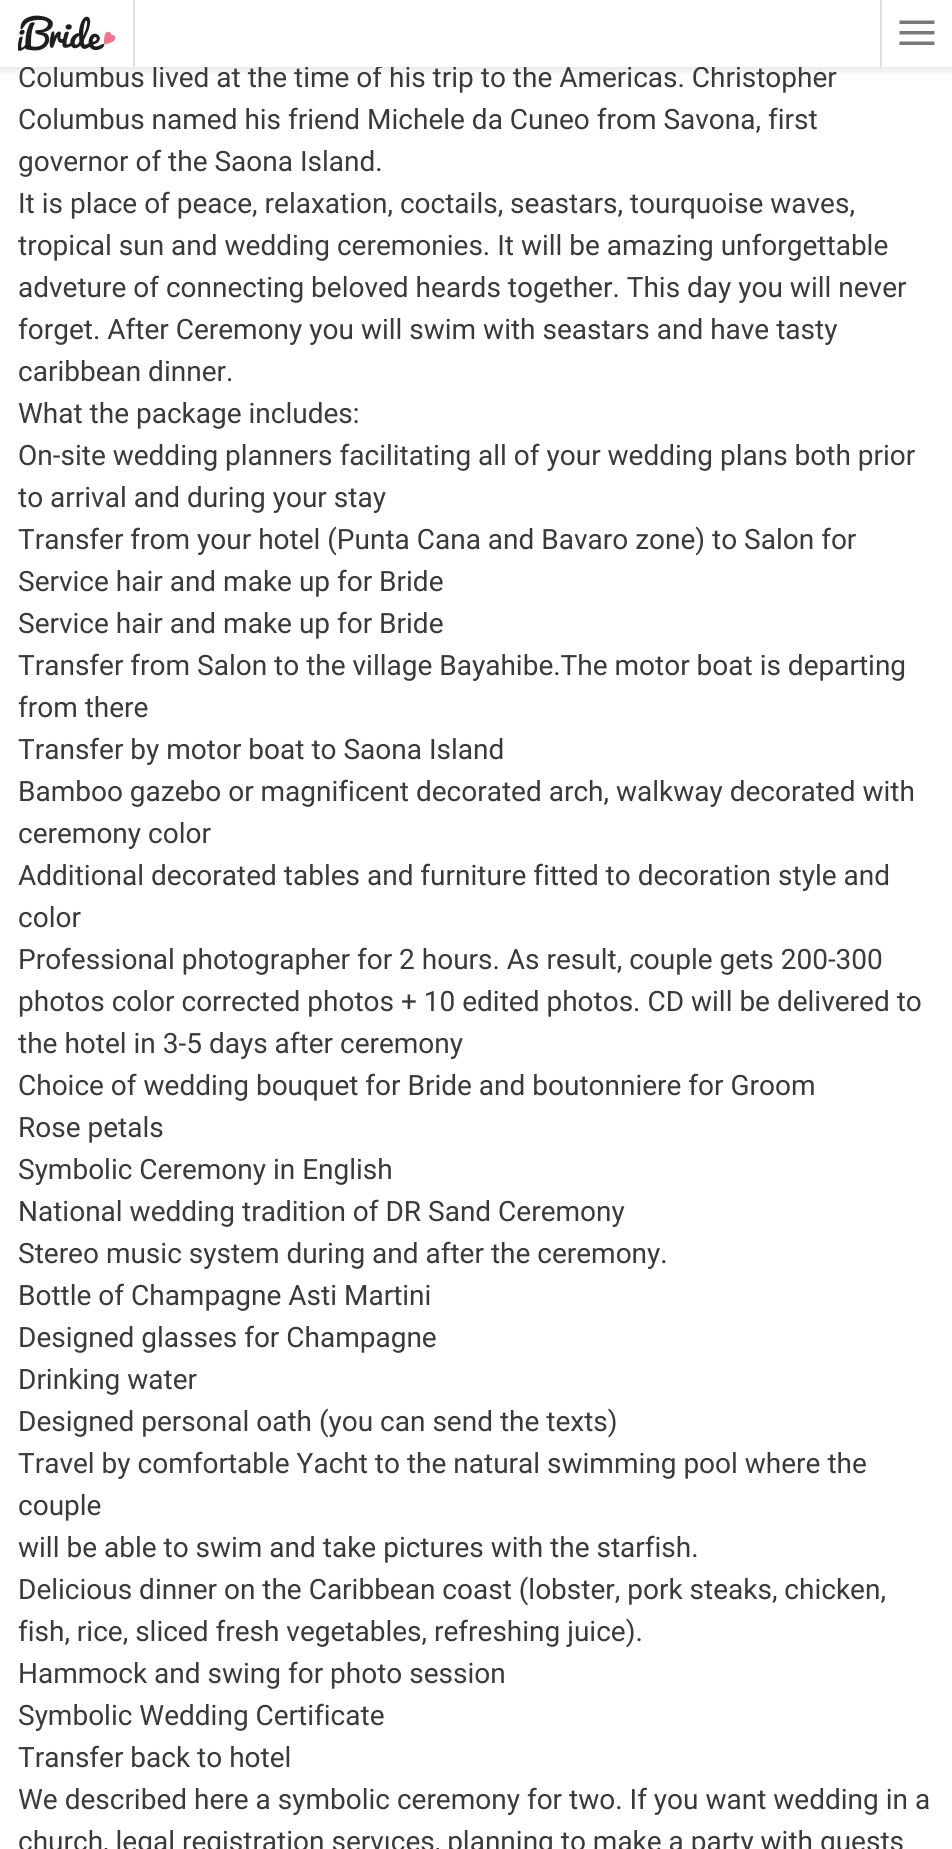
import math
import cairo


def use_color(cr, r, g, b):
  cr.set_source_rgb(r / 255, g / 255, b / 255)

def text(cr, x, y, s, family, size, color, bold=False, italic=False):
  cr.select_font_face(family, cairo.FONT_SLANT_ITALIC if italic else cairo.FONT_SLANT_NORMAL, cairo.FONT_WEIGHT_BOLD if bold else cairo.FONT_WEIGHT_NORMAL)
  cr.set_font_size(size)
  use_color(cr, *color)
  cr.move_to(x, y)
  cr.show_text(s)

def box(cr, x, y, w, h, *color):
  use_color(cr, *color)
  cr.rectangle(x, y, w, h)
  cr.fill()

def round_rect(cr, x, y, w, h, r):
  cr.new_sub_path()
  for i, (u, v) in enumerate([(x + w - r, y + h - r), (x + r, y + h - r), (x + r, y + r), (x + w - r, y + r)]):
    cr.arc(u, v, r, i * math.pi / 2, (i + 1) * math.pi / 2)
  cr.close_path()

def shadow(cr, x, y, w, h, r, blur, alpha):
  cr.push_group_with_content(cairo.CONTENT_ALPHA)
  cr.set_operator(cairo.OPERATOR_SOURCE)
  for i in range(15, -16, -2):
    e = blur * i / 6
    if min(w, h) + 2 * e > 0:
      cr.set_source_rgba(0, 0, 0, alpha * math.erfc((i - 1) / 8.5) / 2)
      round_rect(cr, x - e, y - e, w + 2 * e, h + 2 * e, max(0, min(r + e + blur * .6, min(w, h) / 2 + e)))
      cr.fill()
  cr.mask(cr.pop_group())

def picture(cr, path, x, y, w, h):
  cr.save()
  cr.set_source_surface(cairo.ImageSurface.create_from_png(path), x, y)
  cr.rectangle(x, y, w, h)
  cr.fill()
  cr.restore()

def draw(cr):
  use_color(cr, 255, 255, 255)
  cr.paint()
  use_color(cr, 0, 0, 0)
  shadow(cr, 0, 0, 952, 67, 0, 6, 0.17)
  text(cr, 18, 87, "Columbus lived at the time of his trip to the Americas. Christopher", "Roboto", 28, (58, 58, 58))
  box(cr, 0, 0, 952, 67, 255, 255, 255)
  picture(cr, "img_01.png", 18, 15, 98, 36)
  use_color(cr, 121, 121, 121)
  cr.new_path()
  cr.move_to(899.5, 20.5)
  cr.line_to(934.5, 20.5)
  cr.line_to(934.5, 24)
  cr.line_to(899.5, 24)
  cr.close_path()
  cr.move_to(899.5, 31)
  cr.line_to(934.5, 31)
  cr.line_to(934.5, 34.5)
  cr.line_to(899.5, 34.5)
  cr.close_path()
  cr.move_to(899.5, 41.5)
  cr.line_to(934.5, 41.5)
  cr.line_to(934.5, 45)
  cr.line_to(899.5, 45)
  cr.close_path()
  cr.fill()
  box(cr, 133, 0, 2, 67, 226, 223, 218)
  box(cr, 880, 0, 2, 67, 226, 223, 218)
  text(cr, 18, 129, "Columbus named his friend Michele da Cuneo from Savona, first", "Roboto", 28, (58, 58, 58))
  text(cr, 18, 171, "governor of the Saona Island.", "Roboto", 28, (58, 58, 58))
  text(cr, 18, 213, "It is place of peace, relaxation, coctails, seastars, tourquoise waves,", "Roboto", 28, (58, 58, 58))
  text(cr, 18, 255, "tropical sun and wedding ceremonies. It will be amazing unforgettable", "Roboto", 28, (58, 58, 58))
  text(cr, 18, 297, "adveture of connecting beloved heards together. This day you will never", "Roboto", 28, (58, 58, 58))
  text(cr, 18, 339, "forget. After Ceremony you will swim with seastars and have tasty", "Roboto", 28, (58, 58, 58))
  text(cr, 18, 381, "caribbean dinner.", "Roboto", 28, (58, 58, 58))
  text(cr, 18, 423, "What the package includes:", "Roboto", 28, (58, 58, 58))
  text(cr, 18, 465, "On-site wedding planners facilitating all of your wedding plans both prior", "Roboto", 28, (58, 58, 58))
  text(cr, 18, 507, "to arrival and during your stay", "Roboto", 28, (58, 58, 58))
  text(cr, 18, 549, "Transfer from your hotel (Punta Cana and Bavaro zone) to Salon for", "Roboto", 28, (58, 58, 58))
  text(cr, 18, 591, "Service hair and make up for Bride", "Roboto", 28, (58, 58, 58))
  text(cr, 18, 633, "Service hair and make up for Bride", "Roboto", 28, (58, 58, 58))
  text(cr, 18, 675, "Transfer from Salon to the village Bayahibe.The motor boat is departing", "Roboto", 28, (58, 58, 58))
  text(cr, 18, 717, "from there", "Roboto", 28, (58, 58, 58))
  text(cr, 18, 759, "Transfer by motor boat to Saona Island", "Roboto", 28, (58, 58, 58))
  text(cr, 18, 801, "Bamboo gazebo or magnificent decorated arch, walkway decorated with", "Roboto", 28, (58, 58, 58))
  text(cr, 18, 843, "ceremony color", "Roboto", 28, (58, 58, 58))
  text(cr, 18, 885, "Additional decorated tables and furniture fitted to decoration style and", "Roboto", 28, (58, 58, 58))
  text(cr, 18, 927, "color", "Roboto", 28, (58, 58, 58))
  text(cr, 18, 969, "Professional photographer for 2 hours. As result, couple gets 200-300", "Roboto", 28, (58, 58, 58))
  text(cr, 18, 1011, "photos color corrected photos + 10 edited photos. CD will be delivered to", "Roboto", 28, (58, 58, 58))
  text(cr, 18, 1053, "the hotel in 3-5 days after ceremony", "Roboto", 28, (58, 58, 58))
  text(cr, 18, 1095, "Choice of wedding bouquet for Bride and boutonniere for Groom", "Roboto", 28, (58, 58, 58))
  text(cr, 18, 1137, "Rose petals", "Roboto", 28, (58, 58, 58))
  text(cr, 18, 1179, "Symbolic Ceremony in English", "Roboto", 28, (58, 58, 58))
  text(cr, 18, 1221, "National wedding tradition of DR Sand Ceremony", "Roboto", 28, (58, 58, 58))
  text(cr, 18, 1263, "Stereo music system during and after the ceremony.", "Roboto", 28, (58, 58, 58))
  text(cr, 18, 1305, "Bottle of Champagne Asti Martini", "Roboto", 28, (58, 58, 58))
  text(cr, 18, 1347, "Designed glasses for Champagne", "Roboto", 28, (58, 58, 58))
  text(cr, 18, 1389, "Drinking water", "Roboto", 28, (58, 58, 58))
  text(cr, 18, 1431, "Designed personal oath (you can send the texts)", "Roboto", 28, (58, 58, 58))
  text(cr, 18, 1473, "Travel by comfortable Yacht to the natural swimming pool where the", "Roboto", 28, (58, 58, 58))
  text(cr, 18, 1515, "couple", "Roboto", 28, (58, 58, 58))
  text(cr, 18, 1557, "will be able to swim and take pictures with the starfish.", "Roboto", 28, (58, 58, 58))
  text(cr, 18, 1599, "Delicious dinner on the Caribbean coast (lobster, pork steaks, chicken,", "Roboto", 28, (58, 58, 58))
  text(cr, 18, 1641, "fish, rice, sliced fresh vegetables, refreshing juice).", "Roboto", 28, (58, 58, 58))
  text(cr, 18, 1683, "Hammock and swing for photo session", "Roboto", 28, (58, 58, 58))
  text(cr, 18, 1725, "Symbolic Wedding Certificate", "Roboto", 28, (58, 58, 58))
  text(cr, 18, 1767, "Transfer back to hotel", "Roboto", 28, (58, 58, 58))
  text(cr, 18, 1809, "We described here a symbolic ceremony for two. If you want wedding in a", "Roboto", 28, (58, 58, 58))
  text(cr, 18, 1851, "church, legal registration servıces, planning to make a party with guests", "Roboto", 28, (58, 58, 58))


surface = cairo.ImageSurface(cairo.FORMAT_RGB24, 952, 1849)
cr = cairo.Context(surface)
options = cairo.FontOptions()
options.set_hint_metrics(cairo.HINT_METRICS_OFF)
options.set_hint_style(cairo.HINT_STYLE_NONE)
cr.set_font_options(options)
cr.set_miter_limit(4)
draw(cr)
surface.write_to_png("out.png")
